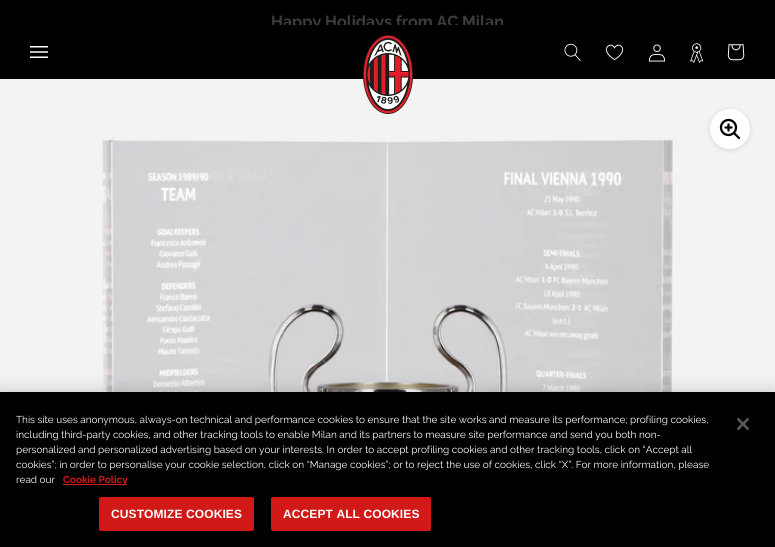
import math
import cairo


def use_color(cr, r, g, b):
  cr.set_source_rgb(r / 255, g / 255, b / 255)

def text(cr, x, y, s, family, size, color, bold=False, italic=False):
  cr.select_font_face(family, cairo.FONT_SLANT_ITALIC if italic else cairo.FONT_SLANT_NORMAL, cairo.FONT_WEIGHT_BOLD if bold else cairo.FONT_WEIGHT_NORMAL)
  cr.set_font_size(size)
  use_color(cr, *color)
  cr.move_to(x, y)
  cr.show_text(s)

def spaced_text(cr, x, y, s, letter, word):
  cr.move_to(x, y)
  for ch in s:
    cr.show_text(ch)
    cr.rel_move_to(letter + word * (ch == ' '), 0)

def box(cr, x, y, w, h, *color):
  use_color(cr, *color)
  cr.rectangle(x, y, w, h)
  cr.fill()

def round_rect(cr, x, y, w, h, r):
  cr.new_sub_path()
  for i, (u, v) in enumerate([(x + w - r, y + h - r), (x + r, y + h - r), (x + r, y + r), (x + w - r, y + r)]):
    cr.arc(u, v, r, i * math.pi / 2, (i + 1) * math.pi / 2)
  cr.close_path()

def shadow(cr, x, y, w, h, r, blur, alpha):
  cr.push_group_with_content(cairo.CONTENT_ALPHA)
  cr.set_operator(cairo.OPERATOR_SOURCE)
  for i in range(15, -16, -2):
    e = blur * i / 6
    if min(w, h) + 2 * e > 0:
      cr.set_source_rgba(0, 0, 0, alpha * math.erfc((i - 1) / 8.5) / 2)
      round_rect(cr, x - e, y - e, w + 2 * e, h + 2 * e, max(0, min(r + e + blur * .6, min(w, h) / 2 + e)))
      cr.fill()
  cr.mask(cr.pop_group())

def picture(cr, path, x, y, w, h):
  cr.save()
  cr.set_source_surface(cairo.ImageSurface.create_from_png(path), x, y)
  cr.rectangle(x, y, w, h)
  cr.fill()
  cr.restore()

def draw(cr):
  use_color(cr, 255, 255, 255)
  cr.paint()
  box(cr, 0, 0, 775, 25, 0, 0, 0)
  picture(cr, "img_08.png", 0, 79, 775, 313)
  use_color(cr, 54, 54, 54)
  shadow(cr, 710, 110, 40, 40, 20, 2.5, 0.15)
  use_color(cr, 255, 255, 255)
  cr.arc(730, 129, 20, 0, 2 * math.pi)
  cr.fill()
  picture(cr, "img_09.png", 719, 118, 22, 22)
  use_color(cr, 0, 0, 0)
  shadow(cr, 0, 392, 775, 155, 0, 9, 0.2)
  box(cr, 0, 392, 775, 155, 0, 0, 0)
  box(cr, 63, 484, 64, 1, 209, 25, 23)
  round_rect(cr, 100, 498, 153, 32, 1)
  cr.fill_preserve()
  cr.stroke()
  round_rect(cr, 272, 498, 158, 32, 1)
  cr.fill_preserve()
  cr.stroke()
  picture(cr, "img_10.png", 737, 418, 12, 12)
  text(cr, 271, 27, "Happy Holidays from AC Milan", "Raleway", 16, (61, 61, 61), bold=True)
  box(cr, 0, 25, 775, 54, 0, 0, 0)
  picture(cr, "img_01.png", 30, 46, 18, 12)
  picture(cr, "img_02.png", 363, 35, 50, 79)
  picture(cr, "img_03.png", 564, 43, 17, 18)
  picture(cr, "img_04.png", 606, 44, 18, 16)
  picture(cr, "img_05.png", 648, 44, 18, 18)
  picture(cr, "img_06.png", 690, 43, 13, 20)
  picture(cr, "img_07.png", 727, 44, 18, 17)
  text(cr, 16, 423, "This site uses anonymous, always-on technical and performance cookies to ensure that the site works and measure its performance; profiling cookies,", "Raleway", 10, (255, 255, 255))
  text(cr, 16, 438, "including third-party cookies, and other tracking tools to enable Milan and its partners to measure site performance and send you both non-", "Raleway", 10, (255, 255, 255))
  text(cr, 16, 453, "personalized and personalized advertising based on your interests. In order to accept profiling cookies and other tracking tools, click on “Accept all", "Raleway", 10, (255, 255, 255))
  text(cr, 16, 468, "cookies”; in order to personalise your cookie selection, click on “Manage cookies”; or to reject the use of cookies, click “X”. For more information, please", "Raleway", 10, (255, 255, 255))
  text(cr, 16, 483, "read our", "Raleway", 10, (255, 255, 255))
  text(cr, 63, 483, "Cookie Policy", "Raleway", 10, (209, 25, 23), bold=True)
  cr.select_font_face("Liberation Sans", cairo.FONT_SLANT_NORMAL, cairo.FONT_WEIGHT_BOLD)
  cr.set_font_size(12)
  use_color(cr, 255, 255, 255)
  spaced_text(cr, 111, 518, "CUSTOMIZE COOKIES", 0.1, 0)
  spaced_text(cr, 283, 518, "ACCEPT ALL COOKIES", 0.1, 0)


surface = cairo.ImageSurface(cairo.FORMAT_RGB24, 775, 547)
cr = cairo.Context(surface)
options = cairo.FontOptions()
options.set_hint_metrics(cairo.HINT_METRICS_OFF)
options.set_hint_style(cairo.HINT_STYLE_NONE)
cr.set_font_options(options)
cr.set_miter_limit(4)
draw(cr)
surface.write_to_png("out.png")
